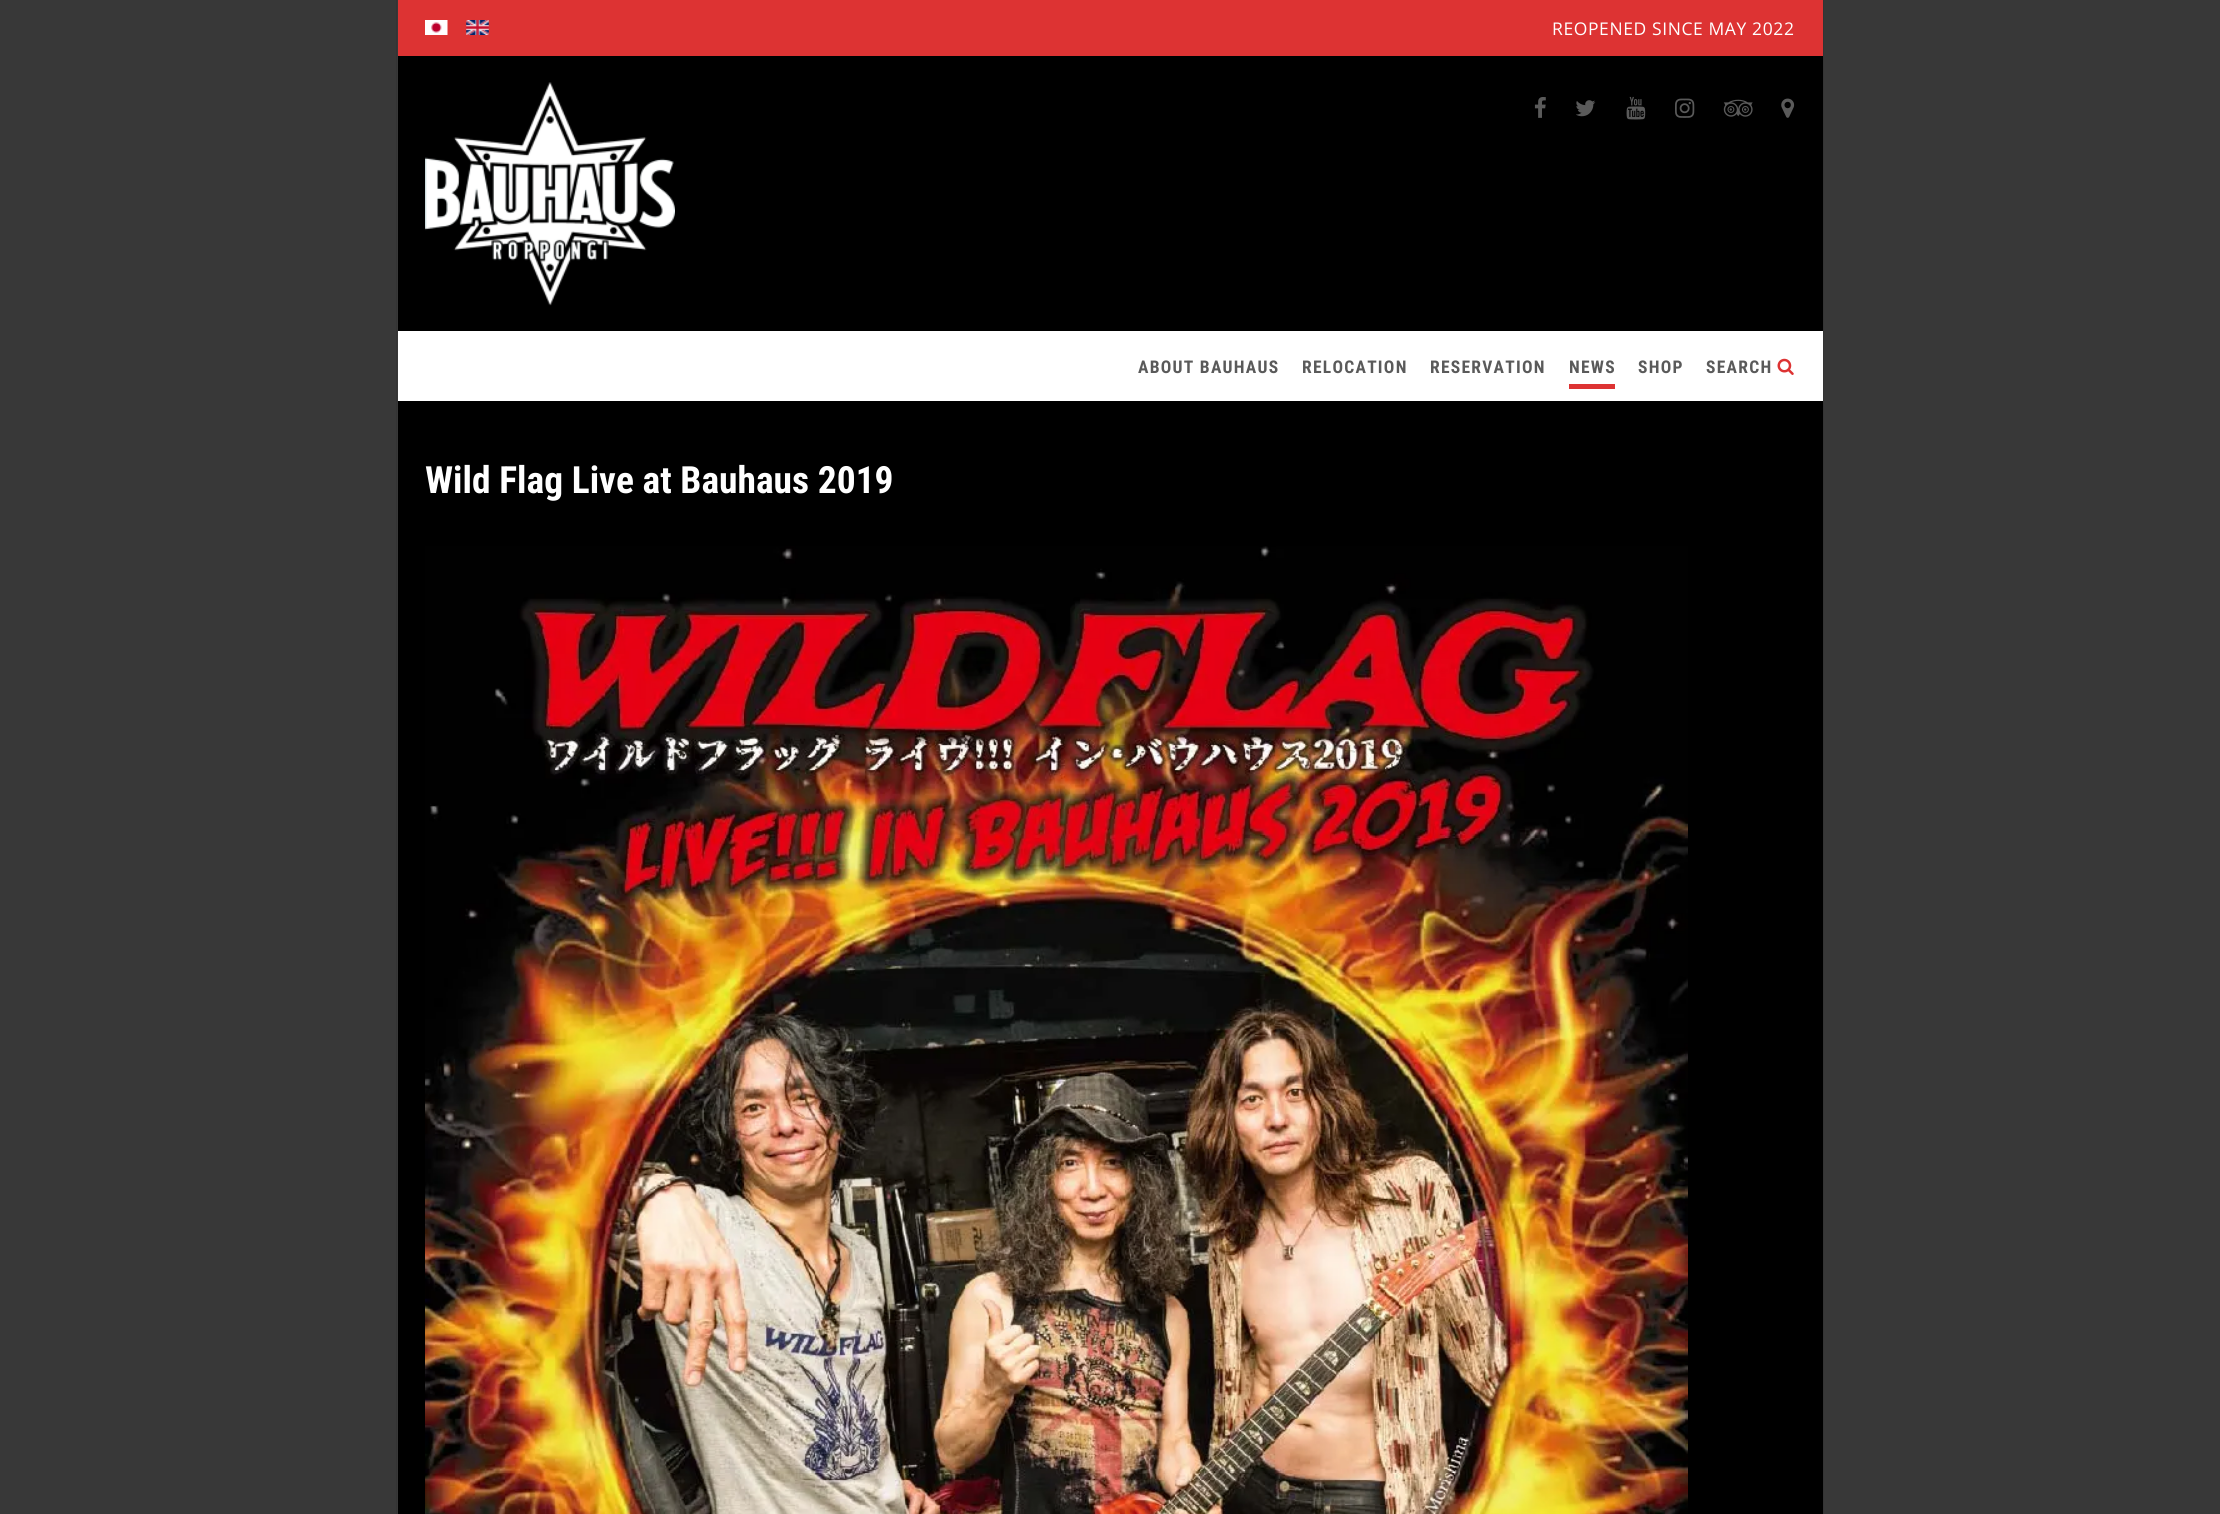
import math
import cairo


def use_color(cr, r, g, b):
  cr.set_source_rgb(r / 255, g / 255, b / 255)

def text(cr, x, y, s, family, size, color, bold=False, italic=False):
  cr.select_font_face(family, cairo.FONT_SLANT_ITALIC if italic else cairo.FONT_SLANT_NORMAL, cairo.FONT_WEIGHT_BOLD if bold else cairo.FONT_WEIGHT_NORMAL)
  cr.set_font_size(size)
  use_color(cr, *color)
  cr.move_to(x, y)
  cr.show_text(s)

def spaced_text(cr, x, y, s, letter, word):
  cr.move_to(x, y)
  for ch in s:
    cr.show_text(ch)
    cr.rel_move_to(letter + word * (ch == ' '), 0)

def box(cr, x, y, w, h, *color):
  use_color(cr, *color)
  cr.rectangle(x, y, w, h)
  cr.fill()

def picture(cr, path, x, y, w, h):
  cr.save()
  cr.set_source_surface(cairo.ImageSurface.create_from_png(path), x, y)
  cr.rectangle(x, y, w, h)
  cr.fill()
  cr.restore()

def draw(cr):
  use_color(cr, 56, 56, 56)
  cr.paint()
  cr.rectangle(396.5, -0.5, 1427, 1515)
  use_color(cr, 52, 52, 52)
  cr.set_line_width(1)
  cr.stroke()
  box(cr, 398, 56, 1425, 1458, 0, 0, 0)
  box(cr, 398, 0, 1425, 56, 221, 51, 51)
  picture(cr, "img_01.png", 425, 20, 23, 15)
  picture(cr, "img_02.png", 466, 20, 23, 15)
  picture(cr, "img_03.png", 425, 82, 250, 224)
  picture(cr, "img_04.png", 1534, 97, 12, 21)
  picture(cr, "img_05.png", 1576, 100, 20, 17)
  picture(cr, "img_06.png", 1626, 96, 20, 24)
  picture(cr, "img_07.png", 1675, 98, 20, 20)
  picture(cr, "img_08.png", 1723, 99, 30, 18)
  picture(cr, "img_09.png", 1781, 98, 14, 20)
  box(cr, 398, 331, 1425, 70, 255, 255, 255)
  box(cr, 1569, 384, 46, 5, 221, 51, 51)
  picture(cr, "img_10.png", 1777, 358, 17, 17)
  picture(cr, "img_11.png", 425, 546, 1263, 968)
  cr.select_font_face("Open Sans")
  cr.set_font_size(17.5)
  use_color(cr, 255, 255, 255)
  spaced_text(cr, 1552, 35, "REOPENED SINCE MAY 2022", 0.6, 0)
  cr.select_font_face("Roboto Condensed", cairo.FONT_SLANT_NORMAL, cairo.FONT_WEIGHT_BOLD)
  use_color(cr, 90, 90, 90)
  spaced_text(cr, 1138, 373, "ABOUT BAUHAUS", 1.25, 0)
  spaced_text(cr, 1302, 373, "RELOCATION", 1.25, 0)
  spaced_text(cr, 1430, 373, "RESERVATION", 1.25, 0)
  spaced_text(cr, 1569, 373, "NEWS", 1.25, 0)
  spaced_text(cr, 1638, 373, "SHOP", 1.25, 0)
  spaced_text(cr, 1706, 373, "SEARCH", 1.25, 0)
  text(cr, 425, 493, "Wild Flag Live at Bauhaus 2019", "Roboto Condensed", 37.5, (255, 255, 255), bold=True)


surface = cairo.ImageSurface(cairo.FORMAT_RGB24, 2220, 1514)
cr = cairo.Context(surface)
options = cairo.FontOptions()
options.set_hint_metrics(cairo.HINT_METRICS_OFF)
options.set_hint_style(cairo.HINT_STYLE_NONE)
cr.set_font_options(options)
cr.set_miter_limit(4)
draw(cr)
surface.write_to_png("out.png")
